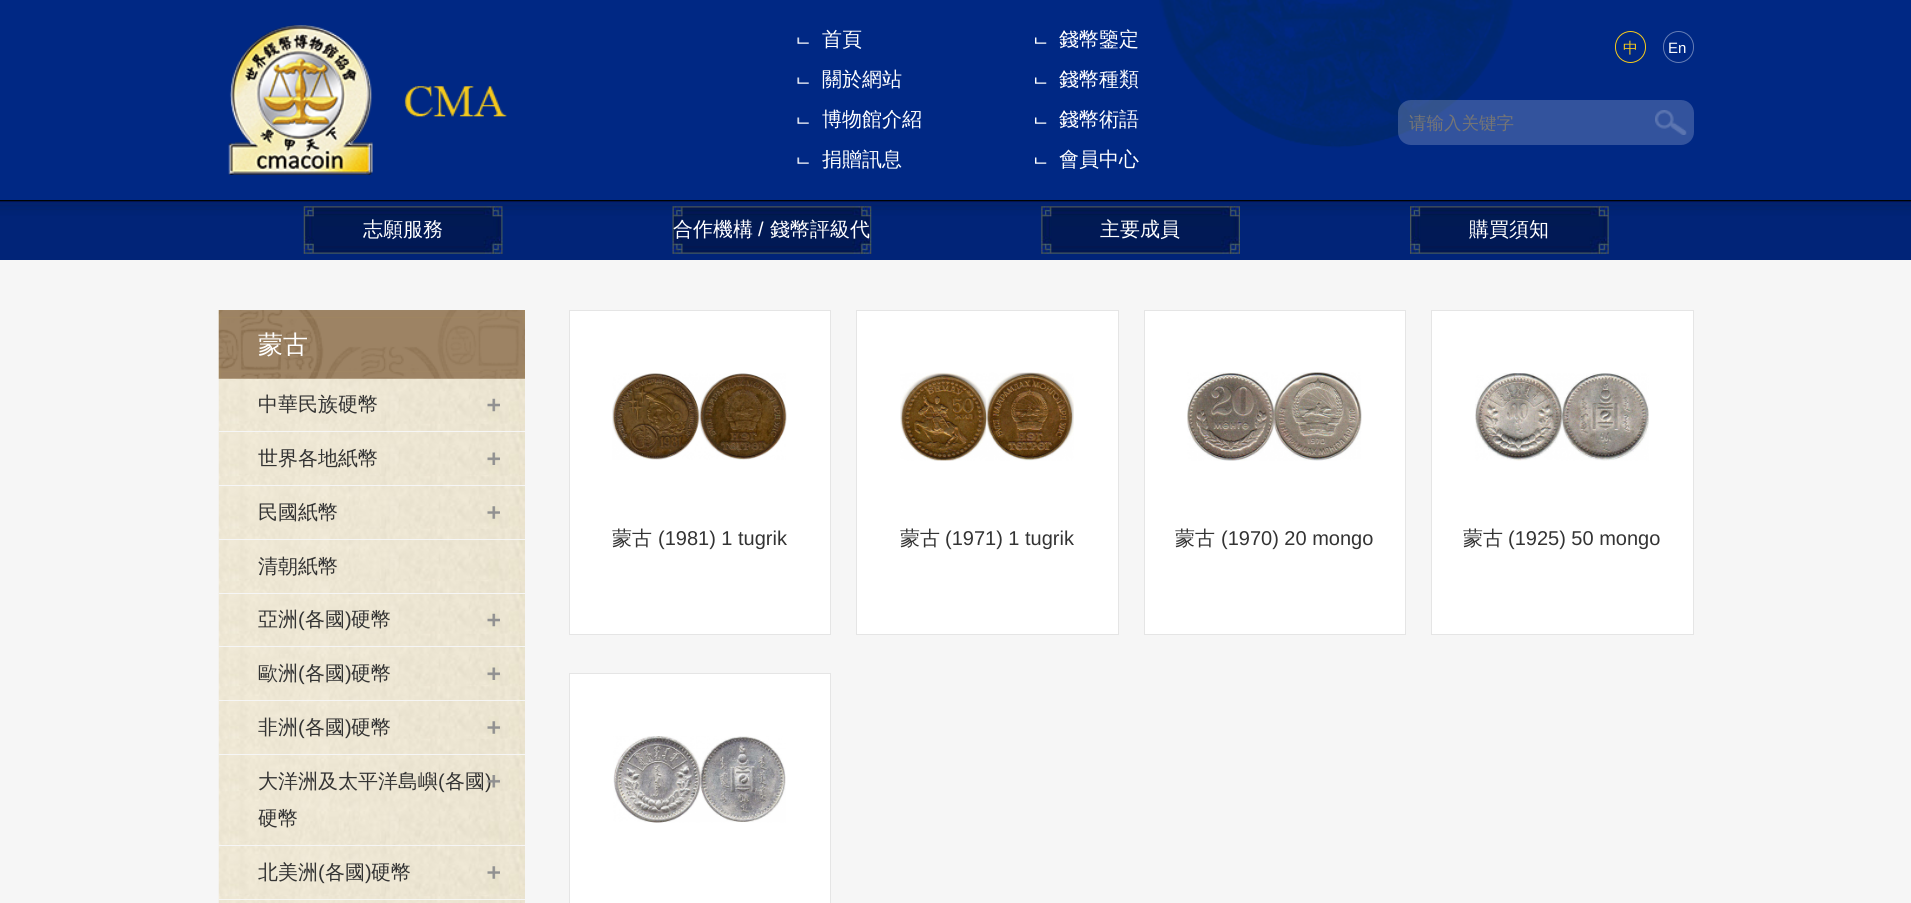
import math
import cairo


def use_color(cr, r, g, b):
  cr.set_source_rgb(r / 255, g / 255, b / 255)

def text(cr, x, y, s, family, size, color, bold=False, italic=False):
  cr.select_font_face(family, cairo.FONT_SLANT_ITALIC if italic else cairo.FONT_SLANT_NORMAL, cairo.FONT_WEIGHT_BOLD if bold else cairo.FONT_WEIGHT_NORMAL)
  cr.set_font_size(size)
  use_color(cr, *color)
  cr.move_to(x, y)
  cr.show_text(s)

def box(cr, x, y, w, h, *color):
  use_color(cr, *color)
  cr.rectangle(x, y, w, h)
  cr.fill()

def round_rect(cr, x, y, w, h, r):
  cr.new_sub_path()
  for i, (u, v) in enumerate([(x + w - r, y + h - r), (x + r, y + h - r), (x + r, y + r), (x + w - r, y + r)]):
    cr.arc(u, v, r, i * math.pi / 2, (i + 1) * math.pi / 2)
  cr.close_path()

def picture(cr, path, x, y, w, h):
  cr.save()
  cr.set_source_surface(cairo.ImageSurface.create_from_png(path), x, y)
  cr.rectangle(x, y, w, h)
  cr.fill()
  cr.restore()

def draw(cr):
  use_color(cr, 246, 246, 246)
  cr.paint()
  box(cr, 0, 0, 1911, 200, 0, 40, 132)
  picture(cr, "img_01.png", 1159, 0, 354, 148)
  picture(cr, "img_02.png", 228, 25, 279, 150)
  picture(cr, "img_03.png", 797, 37, 12, 7)
  picture(cr, "img_04.png", 1035, 37, 12, 7)
  picture(cr, "img_03.png", 797, 77, 12, 7)
  picture(cr, "img_04.png", 1035, 77, 12, 7)
  picture(cr, "img_03.png", 797, 117, 12, 7)
  picture(cr, "img_04.png", 1035, 117, 12, 7)
  picture(cr, "img_03.png", 797, 157, 12, 7)
  picture(cr, "img_04.png", 1035, 157, 12, 7)
  round_rect(cr, 1615.5, 31.5, 30, 31, 15)
  use_color(cr, 244, 201, 28)
  cr.set_line_width(1)
  cr.stroke()
  round_rect(cr, 1663.5, 31.5, 30, 31, 15)
  use_color(cr, 100, 124, 180)
  cr.stroke()
  cr.set_source_rgba(1, 1, 1, 0.2)
  round_rect(cr, 1398, 100, 296, 45, 13)
  cr.fill()
  picture(cr, "img_05.png", 1655, 110, 32, 25)
  picture(cr, "img_06.png", 0, 200, 1911, 60)
  picture(cr, "img_07.png", 303, 206, 200, 48)
  picture(cr, "img_08.png", 672, 206, 200, 48)
  picture(cr, "img_09.png", 1041, 206, 199, 48)
  picture(cr, "img_10.png", 1410, 206, 199, 48)
  picture(cr, "img_11.png", 218, 310, 307, 593)
  picture(cr, "img_12.png", 218, 310, 307, 69)
  box(cr, 219, 431, 306, 1, 246, 246, 246)
  picture(cr, "img_13.png", 487, 398, 13, 14)
  box(cr, 219, 485, 306, 1, 246, 246, 246)
  picture(cr, "img_14.png", 487, 452, 13, 13)
  box(cr, 219, 539, 306, 1, 246, 246, 246)
  picture(cr, "img_15.png", 487, 506, 13, 13)
  box(cr, 219, 593, 306, 1, 246, 246, 246)
  box(cr, 219, 646, 306, 1, 246, 246, 246)
  picture(cr, "img_16.png", 487, 613, 13, 14)
  box(cr, 219, 700, 306, 1, 246, 246, 246)
  picture(cr, "img_17.png", 487, 667, 13, 13)
  box(cr, 219, 754, 306, 1, 246, 246, 246)
  picture(cr, "img_18.png", 487, 721, 13, 13)
  box(cr, 219, 845, 306, 1, 246, 246, 246)
  box(cr, 219, 899, 306, 1, 246, 246, 246)
  picture(cr, "img_20.png", 487, 866, 13, 13)
  use_color(cr, 255, 255, 255)
  cr.rectangle(569.5, 310.5, 261, 324)
  cr.fill_preserve()
  use_color(cr, 229, 229, 229)
  cr.stroke()
  picture(cr, "img_21.png", 612, 373, 175, 87)
  use_color(cr, 255, 255, 255)
  cr.rectangle(856.5, 310.5, 262, 324)
  cr.fill_preserve()
  use_color(cr, 229, 229, 229)
  cr.stroke()
  picture(cr, "img_22.png", 900, 372, 174, 89)
  use_color(cr, 255, 255, 255)
  cr.rectangle(1144.5, 310.5, 261, 324)
  cr.fill_preserve()
  use_color(cr, 229, 229, 229)
  cr.stroke()
  picture(cr, "img_23.png", 1187, 372, 175, 89)
  use_color(cr, 255, 255, 255)
  cr.rectangle(1431.5, 310.5, 262, 324)
  cr.fill_preserve()
  use_color(cr, 229, 229, 229)
  cr.stroke()
  picture(cr, "img_24.png", 1475, 373, 174, 88)
  use_color(cr, 255, 255, 255)
  cr.rectangle(569.5, 673.5, 261, 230)
  cr.fill_preserve()
  use_color(cr, 229, 229, 229)
  cr.stroke()
  picture(cr, "img_25.png", 613, 736, 173, 87)
  text(cr, 822, 46, "首頁", "WenQuanYi Zen Hei Medium", 20, (255, 255, 255))
  text(cr, 1059, 46, "錢幣鑒定", "WenQuanYi Zen Hei Medium", 20, (255, 255, 255))
  text(cr, 822, 86, "關於網站", "WenQuanYi Zen Hei Medium", 20, (255, 255, 255))
  text(cr, 1059, 86, "錢幣種類", "WenQuanYi Zen Hei Medium", 20, (255, 255, 255))
  text(cr, 822, 126, "博物館介紹", "WenQuanYi Zen Hei Medium", 20, (255, 255, 255))
  text(cr, 1059, 126, "錢幣術語", "WenQuanYi Zen Hei Medium", 20, (255, 255, 255))
  text(cr, 822, 166, "捐贈訊息", "WenQuanYi Zen Hei Medium", 20, (255, 255, 255))
  text(cr, 1059, 166, "會員中心", "WenQuanYi Zen Hei Medium", 20, (255, 255, 255))
  text(cr, 1623, 53, "中", "WenQuanYi Zen Hei Medium", 15, (244, 201, 28))
  text(cr, 1668, 53, "En", "Liberation Sans", 15, (255, 255, 255))
  text(cr, 1409, 129, "请输入关键字", "WenQuanYi Zen Hei Medium", 17.5, (117, 117, 117))
  text(cr, 363, 236, "志願服務", "WenQuanYi Zen Hei Medium", 20, (255, 255, 255))
  text(cr, 673, 236, "合作機構", "WenQuanYi Zen Hei Medium", 20, (255, 255, 255))
  text(cr, 758, 236, "/", "Liberation Sans", 20, (255, 255, 255))
  text(cr, 770, 236, "錢幣評級代", "WenQuanYi Zen Hei Medium", 20, (255, 255, 255))
  text(cr, 1100, 236, "主要成員", "WenQuanYi Zen Hei Medium", 20, (255, 255, 255))
  text(cr, 1469, 236, "購買須知", "WenQuanYi Zen Hei Medium", 20, (255, 255, 255))
  text(cr, 258, 353, "蒙古", "WenQuanYi Zen Hei Medium", 25, (255, 255, 255))
  text(cr, 258, 411, "中華民族硬幣", "WenQuanYi Zen Hei Medium", 20, (51, 51, 51))
  text(cr, 258, 465, "世界各地紙幣", "WenQuanYi Zen Hei Medium", 20, (51, 51, 51))
  text(cr, 258, 519, "民國紙幣", "WenQuanYi Zen Hei Medium", 20, (51, 51, 51))
  text(cr, 258, 573, "清朝紙幣", "WenQuanYi Zen Hei Medium", 20, (51, 51, 51))
  text(cr, 258, 626, "亞洲", "WenQuanYi Zen Hei Medium", 20, (51, 51, 51))
  text(cr, 298, 626, "(", "Liberation Sans", 20, (51, 51, 51))
  text(cr, 305, 626, "各國", "WenQuanYi Zen Hei Medium", 20, (51, 51, 51))
  text(cr, 345, 626, ")", "Liberation Sans", 20, (51, 51, 51))
  text(cr, 351, 626, "硬幣", "WenQuanYi Zen Hei Medium", 20, (51, 51, 51))
  text(cr, 258, 680, "歐洲", "WenQuanYi Zen Hei Medium", 20, (51, 51, 51))
  text(cr, 298, 680, "(", "Liberation Sans", 20, (51, 51, 51))
  text(cr, 305, 680, "各國", "WenQuanYi Zen Hei Medium", 20, (51, 51, 51))
  text(cr, 345, 680, ")", "Liberation Sans", 20, (51, 51, 51))
  text(cr, 351, 680, "硬幣", "WenQuanYi Zen Hei Medium", 20, (51, 51, 51))
  text(cr, 258, 734, "非洲", "WenQuanYi Zen Hei Medium", 20, (51, 51, 51))
  text(cr, 298, 734, "(", "Liberation Sans", 20, (51, 51, 51))
  text(cr, 305, 734, "各國", "WenQuanYi Zen Hei Medium", 20, (51, 51, 51))
  text(cr, 345, 734, ")", "Liberation Sans", 20, (51, 51, 51))
  text(cr, 351, 734, "硬幣", "WenQuanYi Zen Hei Medium", 20, (51, 51, 51))
  text(cr, 258, 788, "大洋洲及太平洋島嶼", "WenQuanYi Zen Hei Medium", 20, (51, 51, 51))
  text(cr, 438, 788, "(", "Liberation Sans", 20, (51, 51, 51))
  text(cr, 445, 788, "各國", "WenQuanYi Zen Hei Medium", 20, (51, 51, 51))
  text(cr, 485, 788, ")", "Liberation Sans", 20, (51, 51, 51))
  text(cr, 258, 825, "硬幣", "WenQuanYi Zen Hei Medium", 20, (51, 51, 51))
  picture(cr, "img_19.png", 487, 775, 13, 13)
  text(cr, 258, 879, "北美洲", "WenQuanYi Zen Hei Medium", 20, (51, 51, 51))
  text(cr, 318, 879, "(", "Liberation Sans", 20, (51, 51, 51))
  text(cr, 325, 879, "各國", "WenQuanYi Zen Hei Medium", 20, (51, 51, 51))
  text(cr, 365, 879, ")", "Liberation Sans", 20, (51, 51, 51))
  text(cr, 371, 879, "硬幣", "WenQuanYi Zen Hei Medium", 20, (51, 51, 51))
  text(cr, 612, 545, "蒙古", "WenQuanYi Zen Hei Medium", 20, (51, 51, 51))
  text(cr, 658, 545, "(1981) 1 tugrik", "Liberation Sans", 20, (51, 51, 51))
  text(cr, 900, 545, "蒙古", "WenQuanYi Zen Hei Medium", 20, (51, 51, 51))
  text(cr, 945, 545, "(1971) 1 tugrik", "Liberation Sans", 20, (51, 51, 51))
  text(cr, 1175, 545, "蒙古", "WenQuanYi Zen Hei Medium", 20, (51, 51, 51))
  text(cr, 1221, 545, "(1970) 20 mongo", "Liberation Sans", 20, (51, 51, 51))
  text(cr, 1463, 545, "蒙古", "WenQuanYi Zen Hei Medium", 20, (51, 51, 51))
  text(cr, 1508, 545, "(1925) 50 mongo", "Liberation Sans", 20, (51, 51, 51))


surface = cairo.ImageSurface(cairo.FORMAT_RGB24, 1911, 903)
cr = cairo.Context(surface)
options = cairo.FontOptions()
options.set_hint_metrics(cairo.HINT_METRICS_OFF)
options.set_hint_style(cairo.HINT_STYLE_NONE)
cr.set_font_options(options)
cr.set_miter_limit(4)
draw(cr)
surface.write_to_png("out.png")
